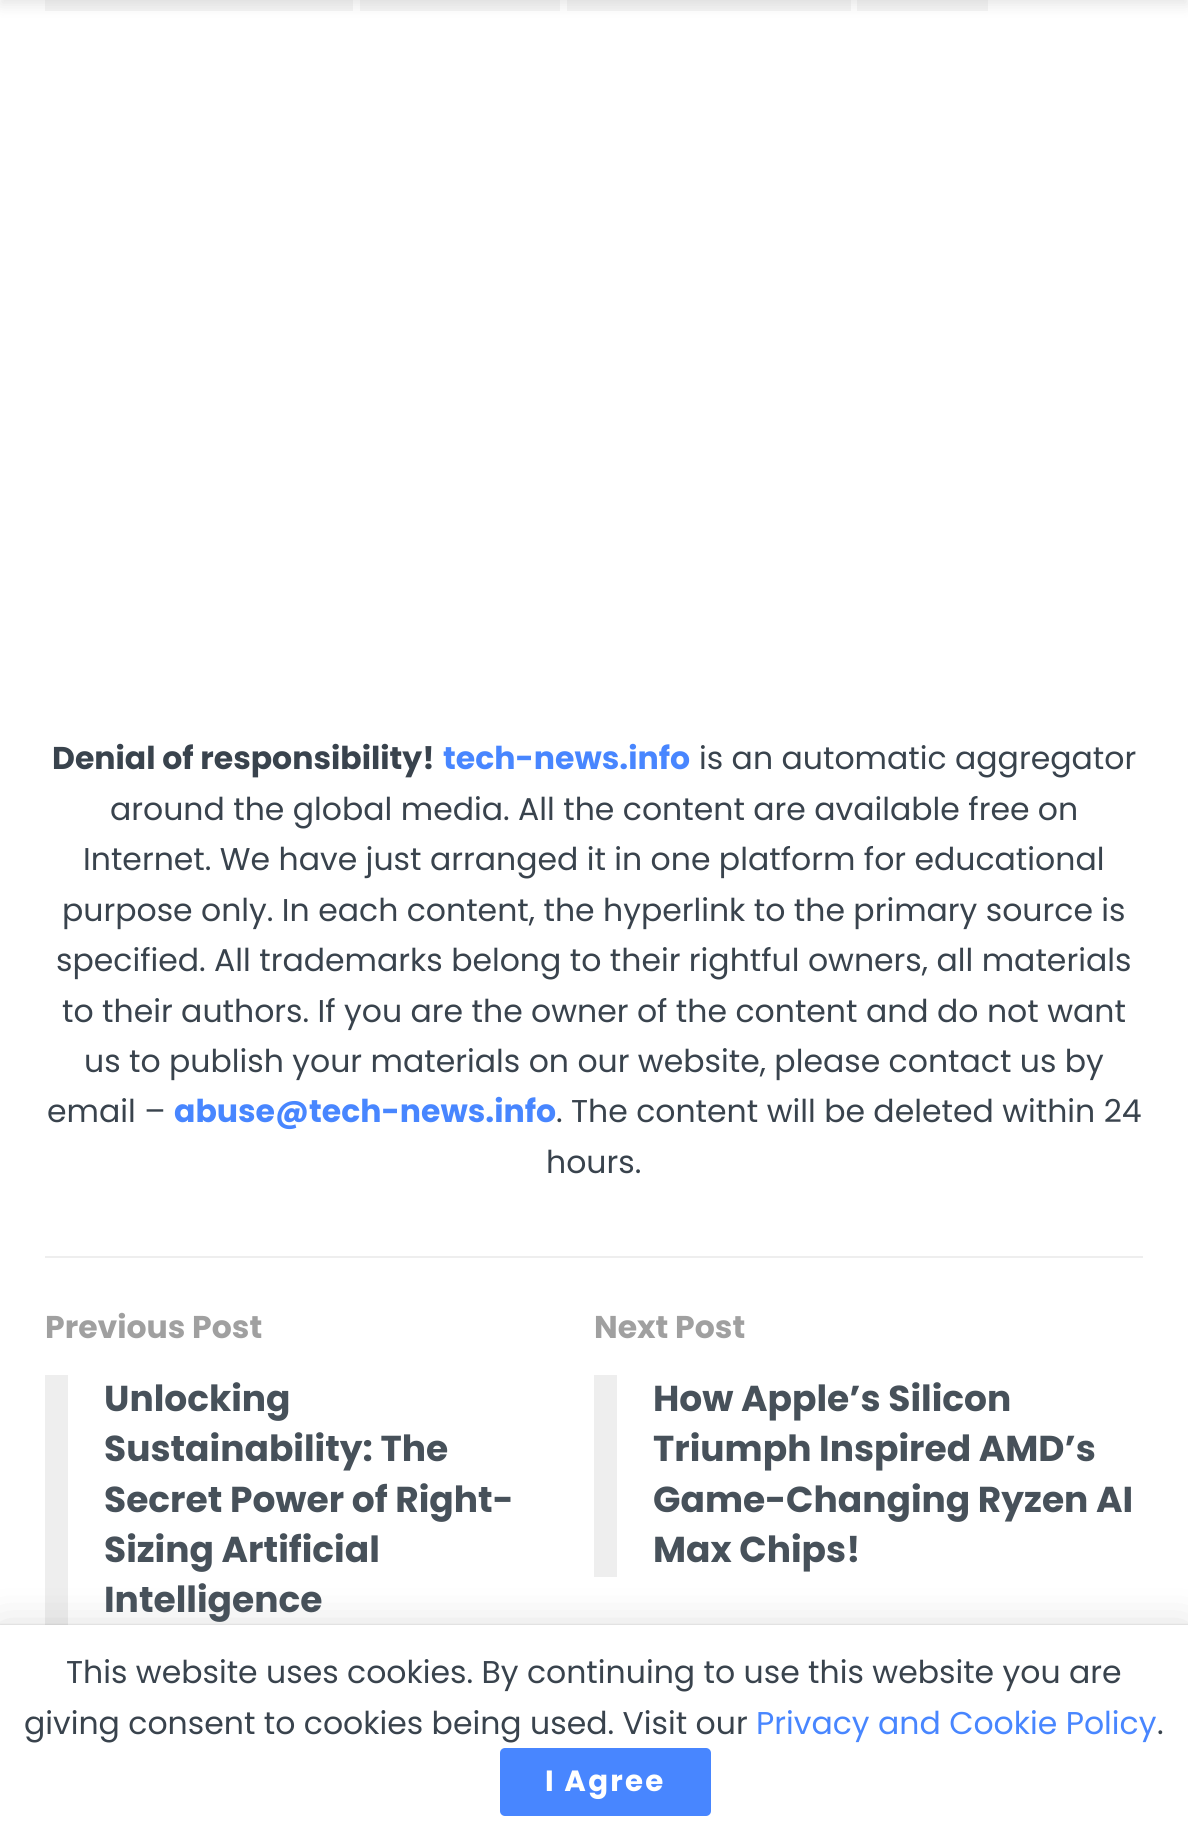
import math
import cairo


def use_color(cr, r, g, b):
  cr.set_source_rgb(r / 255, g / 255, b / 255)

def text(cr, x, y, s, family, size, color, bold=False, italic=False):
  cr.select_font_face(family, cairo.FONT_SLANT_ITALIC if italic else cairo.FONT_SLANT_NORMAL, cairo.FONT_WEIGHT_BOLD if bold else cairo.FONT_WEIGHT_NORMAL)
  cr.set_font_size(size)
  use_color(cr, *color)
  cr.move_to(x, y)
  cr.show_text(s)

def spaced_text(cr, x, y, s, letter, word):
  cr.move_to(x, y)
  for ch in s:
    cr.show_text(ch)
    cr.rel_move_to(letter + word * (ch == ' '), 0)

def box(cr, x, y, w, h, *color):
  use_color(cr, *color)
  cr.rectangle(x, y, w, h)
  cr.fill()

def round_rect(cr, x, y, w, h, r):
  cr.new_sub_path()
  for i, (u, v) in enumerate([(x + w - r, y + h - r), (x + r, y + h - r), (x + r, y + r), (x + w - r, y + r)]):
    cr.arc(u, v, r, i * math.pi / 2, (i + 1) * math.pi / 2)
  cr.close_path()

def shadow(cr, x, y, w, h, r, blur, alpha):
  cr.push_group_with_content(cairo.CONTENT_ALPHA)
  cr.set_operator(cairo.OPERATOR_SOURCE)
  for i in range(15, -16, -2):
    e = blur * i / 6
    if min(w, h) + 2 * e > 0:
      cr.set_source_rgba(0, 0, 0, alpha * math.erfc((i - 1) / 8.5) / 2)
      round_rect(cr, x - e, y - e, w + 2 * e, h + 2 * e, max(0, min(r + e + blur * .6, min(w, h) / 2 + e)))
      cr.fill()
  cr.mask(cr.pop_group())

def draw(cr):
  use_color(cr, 255, 255, 255)
  cr.paint()
  box(cr, 45, 0, 308, 11, 245, 245, 245)
  box(cr, 360, 0, 200, 11, 245, 245, 245)
  box(cr, 567, 0, 284, 11, 245, 245, 245)
  box(cr, 857, 0, 131, 11, 245, 245, 245)
  use_color(cr, 0, 0, 0)
  shadow(cr, 0, -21, 1188, 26, 0, 7, 0.1)
  box(cr, 45, 1256, 1098, 2, 238, 238, 238)
  box(cr, 45, 1375, 23, 250, 238, 238, 238)
  box(cr, 594, 1375, 23, 202, 238, 238, 238)
  use_color(cr, 0, 0, 0)
  shadow(cr, 0, 1629, 1188, 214, 0, 22.5, 0.15)
  shadow(cr, 0, 1625, 1188, 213, 0, 1, 0.2)
  box(cr, 0, 1625, 1188, 212, 255, 255, 255)
  use_color(cr, 72, 134, 255)
  round_rect(cr, 500, 1748, 211, 68, 5)
  cr.fill()
  text(cr, 52, 769, "Denial of responsibility!", "Poppins", 31.5, (57, 67, 77), bold=True)
  text(cr, 443, 769, "tech-news.info", "Poppins", 31.5, (72, 134, 255), bold=True)
  text(cr, 699, 769, "is an automatic aggregator", "Poppins", 31.5, (57, 67, 77))
  text(cr, 110, 820, "around the global media. All the content are available free on", "Poppins", 31.5, (57, 67, 77))
  text(cr, 83, 870, "Internet. We have just arranged it in one platform for educational", "Poppins", 31.5, (57, 67, 77))
  text(cr, 62, 921, "purpose only. In each content, the hyperlink to the primary source is", "Poppins", 31.5, (57, 67, 77))
  text(cr, 56, 971, "specified. All trademarks belong to their rightful owners, all materials", "Poppins", 31.5, (57, 67, 77))
  text(cr, 62, 1022, "to their authors. If you are the owner of the content and do not want", "Poppins", 31.5, (57, 67, 77))
  text(cr, 84, 1072, "us to publish your materials on our website, please contact us by", "Poppins", 31.5, (57, 67, 77))
  text(cr, 47, 1122, "email –", "Poppins", 31.5, (57, 67, 77))
  text(cr, 174, 1122, "abuse@tech-news.info", "Poppins", 31.5, (72, 134, 255), bold=True)
  text(cr, 556, 1122, ". The content will be deleted within 24", "Poppins", 31.5, (57, 67, 77))
  text(cr, 546, 1173, "hours.", "Poppins", 31.5, (57, 67, 77))
  text(cr, 45, 1338, "Previous Post", "Poppins", 31.5, (160, 160, 160), bold=True)
  text(cr, 104, 1411, "Unlocking", "Poppins", 36, (71, 81, 90), bold=True)
  text(cr, 104, 1461, "Sustainability: The", "Poppins", 36, (71, 81, 90), bold=True)
  text(cr, 104, 1512, "Secret Power of Right-", "Poppins", 36, (71, 81, 90), bold=True)
  text(cr, 104, 1562, "Sizing Artificial", "Poppins", 36, (71, 81, 90), bold=True)
  text(cr, 104, 1612, "Intelligence", "Poppins", 36, (71, 81, 90), bold=True)
  text(cr, 594, 1338, "Next Post", "Poppins", 31.5, (160, 160, 160), bold=True)
  text(cr, 653, 1411, "How Apple’s Silicon", "Poppins", 36, (71, 81, 90), bold=True)
  text(cr, 653, 1461, "Triumph Inspired AMD’s", "Poppins", 36, (71, 81, 90), bold=True)
  text(cr, 653, 1512, "Game-Changing Ryzen AI", "Poppins", 36, (71, 81, 90), bold=True)
  text(cr, 653, 1562, "Max Chips!", "Poppins", 36, (71, 81, 90), bold=True)
  text(cr, 66, 1683, "This website uses cookies. By continuing to use this website you are", "Poppins", 31.5, (57, 67, 77))
  text(cr, 24, 1734, "giving consent to cookies being used. Visit our", "Poppins", 31.5, (57, 67, 77))
  text(cr, 756, 1734, "Privacy and Cookie Policy", "Poppins", 31.5, (72, 134, 255))
  text(cr, 1157, 1734, ".", "Poppins", 31.5, (57, 67, 77))
  cr.select_font_face("Poppins", cairo.FONT_SLANT_NORMAL, cairo.FONT_WEIGHT_BOLD)
  cr.set_font_size(29.25)
  use_color(cr, 255, 255, 255)
  spaced_text(cr, 545, 1791, "I Agree", 2.25, 0)


surface = cairo.ImageSurface(cairo.FORMAT_RGB24, 1188, 1837)
cr = cairo.Context(surface)
options = cairo.FontOptions()
options.set_hint_metrics(cairo.HINT_METRICS_OFF)
options.set_hint_style(cairo.HINT_STYLE_NONE)
cr.set_font_options(options)
cr.set_miter_limit(4)
draw(cr)
surface.write_to_png("out.png")
